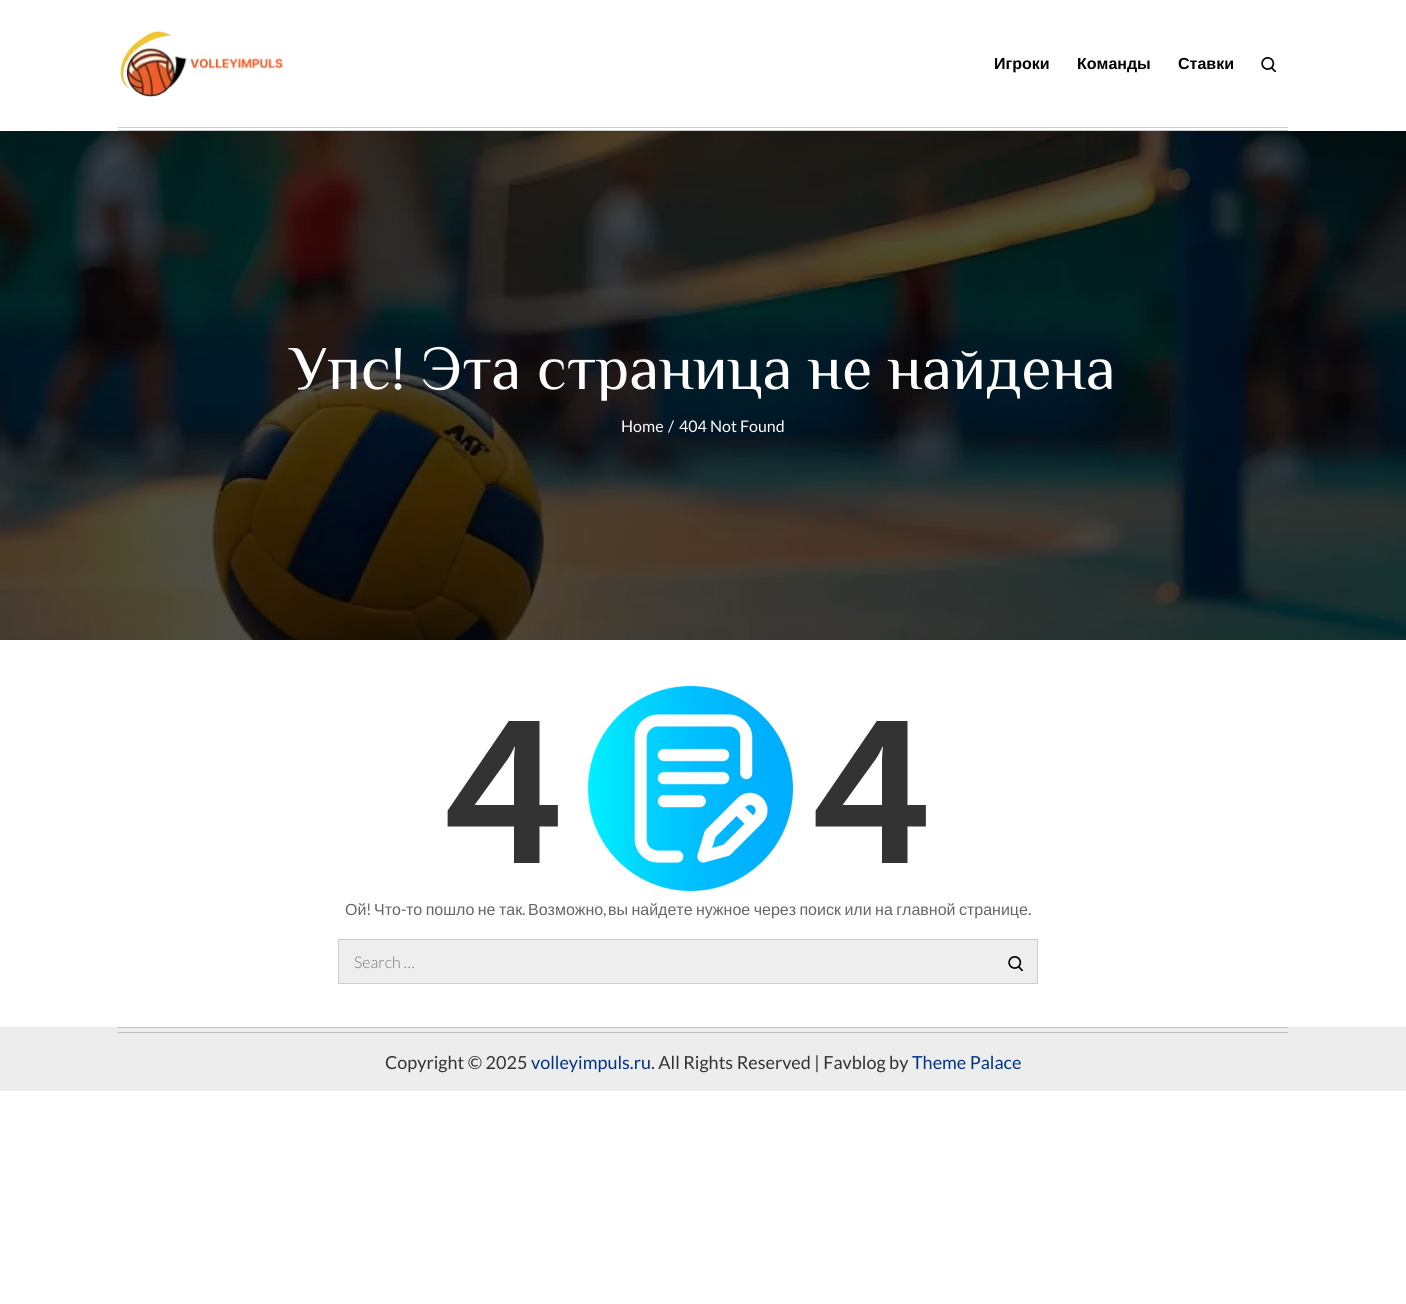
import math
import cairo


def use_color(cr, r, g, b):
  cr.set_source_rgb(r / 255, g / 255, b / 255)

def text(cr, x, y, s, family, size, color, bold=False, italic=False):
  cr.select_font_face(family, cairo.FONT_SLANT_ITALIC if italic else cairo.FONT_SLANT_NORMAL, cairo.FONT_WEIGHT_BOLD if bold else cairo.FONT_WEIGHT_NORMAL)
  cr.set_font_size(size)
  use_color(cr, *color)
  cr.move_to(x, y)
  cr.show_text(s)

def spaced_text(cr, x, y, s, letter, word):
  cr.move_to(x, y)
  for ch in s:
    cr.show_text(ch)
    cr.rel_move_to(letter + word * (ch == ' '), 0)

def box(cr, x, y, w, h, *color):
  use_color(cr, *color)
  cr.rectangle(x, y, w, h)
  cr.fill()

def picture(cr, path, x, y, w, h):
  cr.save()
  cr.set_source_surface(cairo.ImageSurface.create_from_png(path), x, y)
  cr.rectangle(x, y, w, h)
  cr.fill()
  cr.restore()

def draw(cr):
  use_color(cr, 255, 255, 255)
  cr.paint()
  picture(cr, "img_01.png", 120, 31, 163, 66)
  picture(cr, "img_02.png", 1261, 57, 15, 15)
  box(cr, 118, 127, 1170, 1, 204, 204, 204)
  box(cr, 118, 130, 1170, 1, 204, 204, 204)
  picture(cr, "img_03.png", 0, 131, 1406, 509)
  picture(cr, "img_04.png", 447, 686, 479, 205)
  use_color(cr, 238, 238, 238)
  cr.rectangle(338.5, 939.5, 699, 44)
  cr.fill_preserve()
  use_color(cr, 204, 204, 204)
  cr.set_line_width(1)
  cr.stroke()
  picture(cr, "img_05.png", 1008, 956, 15, 15)
  box(cr, 0, 1027, 1406, 64, 237, 237, 237)
  box(cr, 118, 1027, 1170, 1, 190, 190, 190)
  box(cr, 118, 1032, 1170, 1, 190, 190, 190)
  text(cr, 994, 69, "Игроки", "Liberation Sans", 16, (0, 0, 0), bold=True)
  text(cr, 1077, 69, "Команды", "Liberation Sans", 16, (0, 0, 0), bold=True)
  text(cr, 1178, 69, "Ставки", "Liberation Sans", 16, (0, 0, 0), bold=True)
  text(cr, 290, 389, "Упс! Эта страница не найдена", "Philosopher", 62, (255, 255, 255))
  text(cr, 621, 432, "Home", "Lato", 16, (255, 255, 255))
  text(cr, 668, 432, "/", "Lato", 16, (255, 255, 255))
  text(cr, 679, 432, "404 Not Found", "Lato", 16, (255, 255, 255))
  text(cr, 345, 915, "Ой", "Liberation Sans", 16, (102, 102, 102))
  text(cr, 366, 915, "!", "Lato", 16, (102, 102, 102))
  text(cr, 374, 915, "Что", "Liberation Sans", 16, (102, 102, 102))
  text(cr, 401, 915, "-", "Lato", 16, (102, 102, 102))
  cr.select_font_face("Liberation Sans")
  spaced_text(cr, 406, 915, "то пошло не так", 0, -1)
  text(cr, 528, 915, "Возможно", "Liberation Sans", 16, (102, 102, 102))
  spaced_text(cr, 608, 915, "вы найдете нужное через поиск или на главной странице", 0, -1)
  text(cr, 522, 915, ".", "Lato", 16, (102, 102, 102))
  text(cr, 603, 915, ",", "Lato", 16, (102, 102, 102))
  text(cr, 1028, 915, ".", "Lato", 16, (102, 102, 102))
  text(cr, 354, 968, "Search …", "Lato Light", 16, (117, 117, 117))
  text(cr, 385, 1069, "Copyright © 2025", "Lato", 18, (51, 51, 51))
  text(cr, 531, 1069, "volleyimpuls.ru", "Lato", 18, (0, 51, 129))
  text(cr, 651, 1069, ". All Rights Reserved | Favblog by", "Lato", 18, (51, 51, 51))
  text(cr, 912, 1069, "Theme Palace", "Lato", 18, (0, 51, 129))


surface = cairo.ImageSurface(cairo.FORMAT_RGB24, 1406, 1304)
cr = cairo.Context(surface)
options = cairo.FontOptions()
options.set_hint_metrics(cairo.HINT_METRICS_OFF)
options.set_hint_style(cairo.HINT_STYLE_NONE)
cr.set_font_options(options)
cr.set_miter_limit(4)
draw(cr)
surface.write_to_png("out.png")
